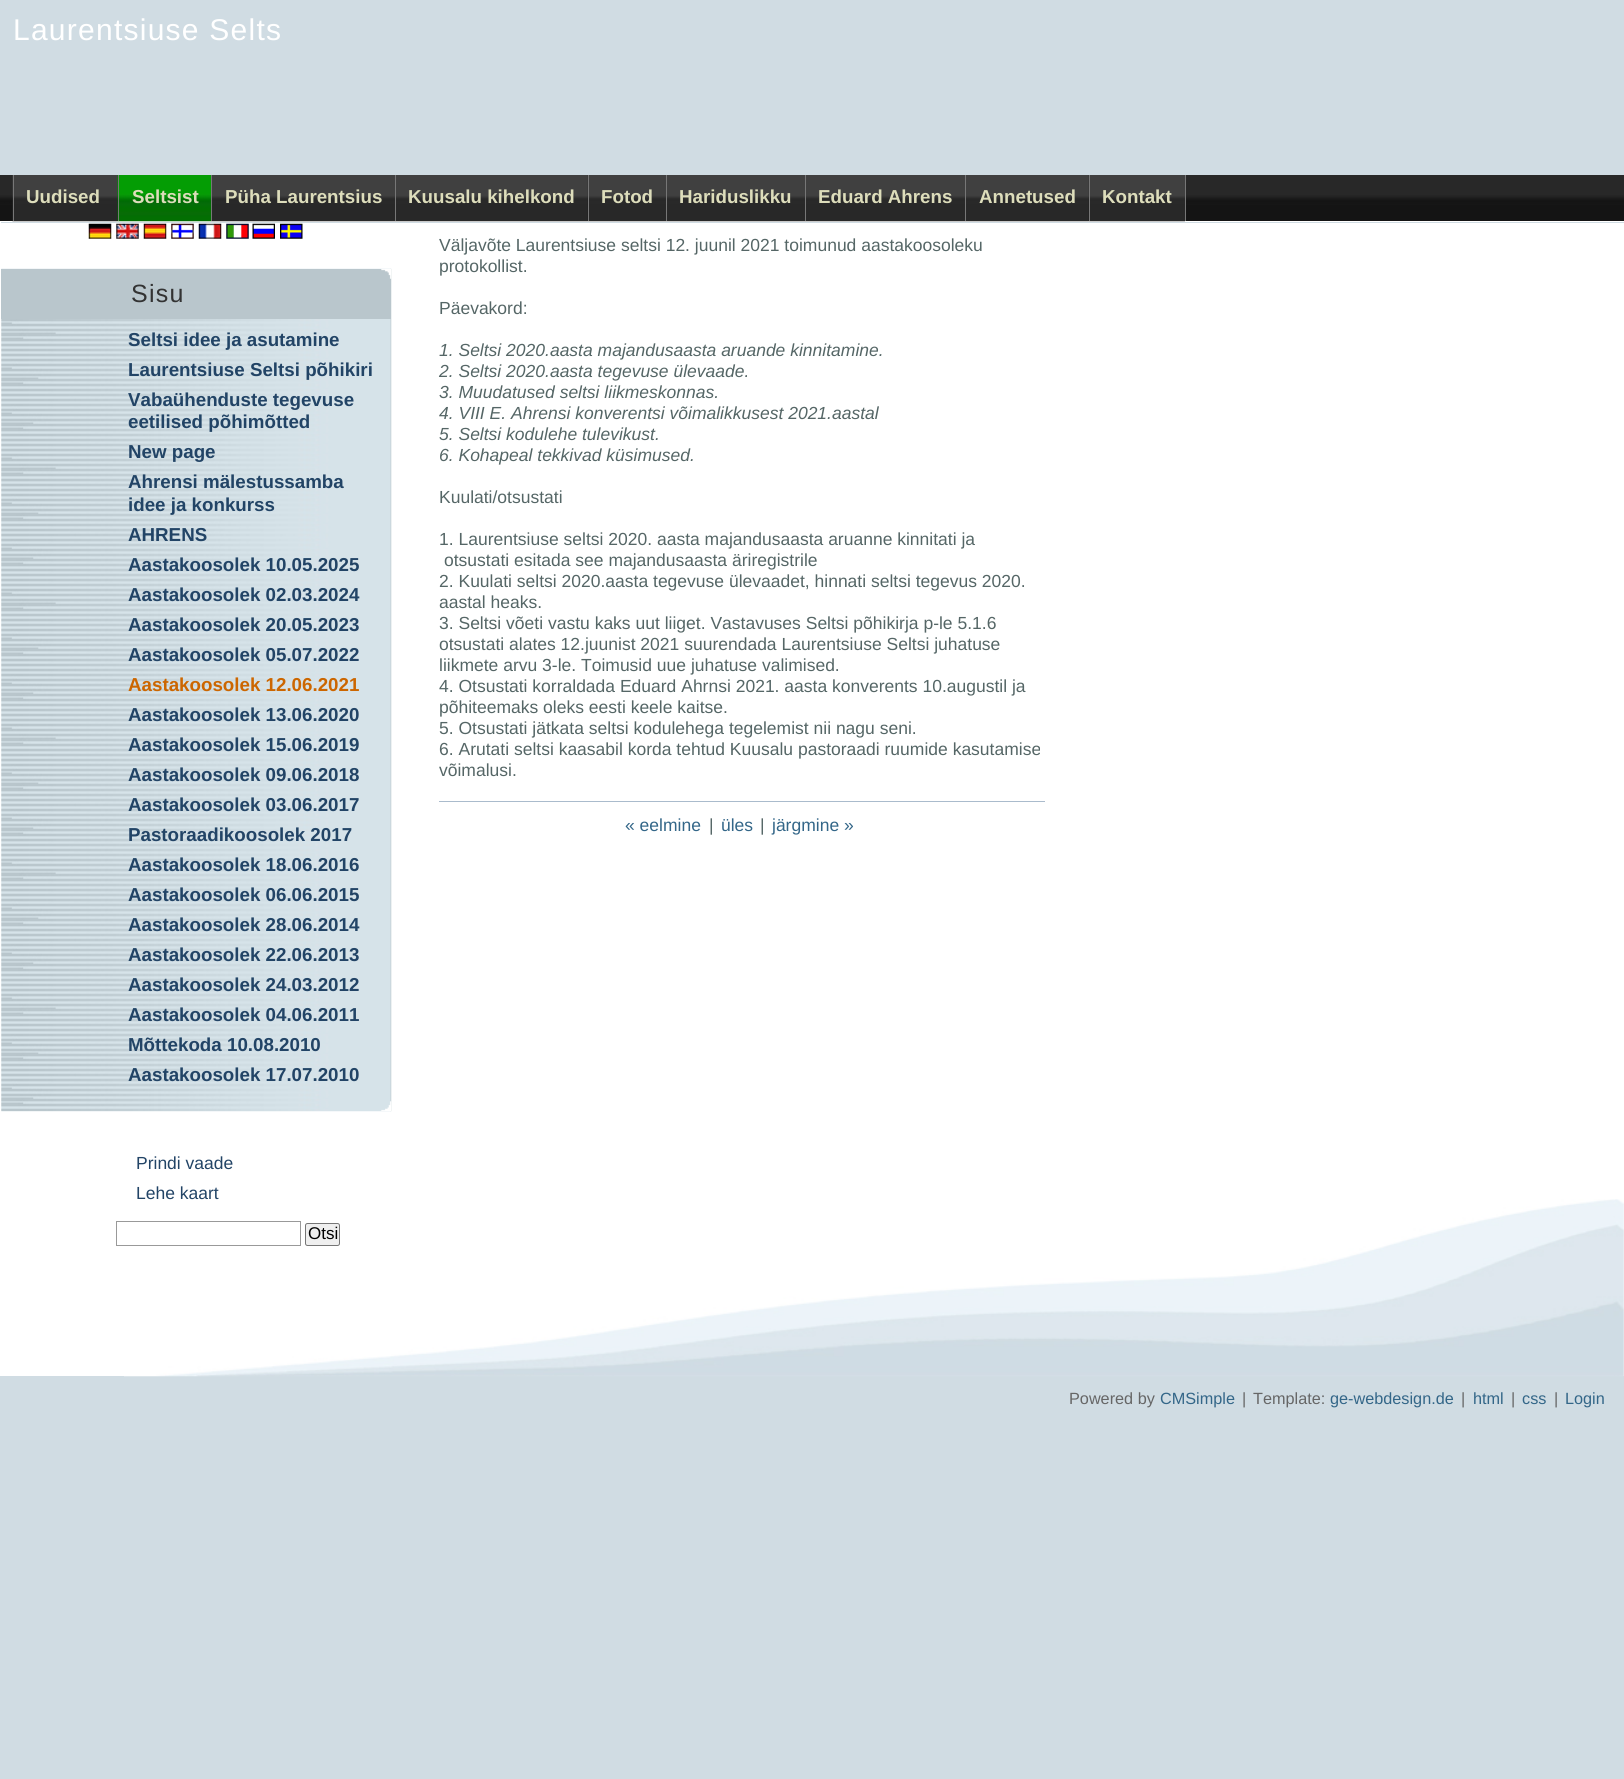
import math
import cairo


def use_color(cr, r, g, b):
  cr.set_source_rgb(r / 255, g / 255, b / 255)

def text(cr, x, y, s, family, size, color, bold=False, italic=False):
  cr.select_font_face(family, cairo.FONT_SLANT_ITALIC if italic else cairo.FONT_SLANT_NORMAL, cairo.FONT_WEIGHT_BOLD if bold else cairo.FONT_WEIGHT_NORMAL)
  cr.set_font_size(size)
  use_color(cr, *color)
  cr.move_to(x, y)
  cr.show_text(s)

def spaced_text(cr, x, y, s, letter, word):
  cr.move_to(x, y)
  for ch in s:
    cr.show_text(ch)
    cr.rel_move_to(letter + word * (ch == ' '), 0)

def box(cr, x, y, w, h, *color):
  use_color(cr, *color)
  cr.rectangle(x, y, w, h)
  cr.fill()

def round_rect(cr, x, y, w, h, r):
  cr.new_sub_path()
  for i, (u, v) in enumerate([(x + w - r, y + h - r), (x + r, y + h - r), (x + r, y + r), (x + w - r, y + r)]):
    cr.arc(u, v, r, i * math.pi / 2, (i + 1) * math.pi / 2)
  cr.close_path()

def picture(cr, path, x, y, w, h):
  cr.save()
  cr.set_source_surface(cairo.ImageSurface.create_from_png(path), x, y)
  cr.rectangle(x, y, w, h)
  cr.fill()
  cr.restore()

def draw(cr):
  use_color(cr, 208, 220, 227)
  cr.paint()
  picture(cr, "img_01.png", 0, 175, 1624, 46)
  box(cr, 1185, 175, 1, 46, 119, 119, 119)
  box(cr, 0, 221, 1624, 1, 255, 255, 255)
  picture(cr, "img_02.png", 12, 175, 106, 47)
  box(cr, 13, 175, 1, 46, 119, 119, 119)
  picture(cr, "img_03.png", 117, 175, 95, 47)
  box(cr, 118, 175, 1, 46, 119, 119, 119)
  picture(cr, "img_04.png", 211, 175, 184, 47)
  box(cr, 211, 175, 1, 46, 119, 119, 119)
  picture(cr, "img_05.png", 395, 175, 193, 47)
  box(cr, 395, 175, 1, 46, 119, 119, 119)
  picture(cr, "img_06.png", 587, 175, 80, 47)
  box(cr, 588, 175, 1, 46, 119, 119, 119)
  picture(cr, "img_07.png", 666, 175, 139, 47)
  box(cr, 666, 175, 1, 46, 119, 119, 119)
  picture(cr, "img_08.png", 805, 175, 160, 47)
  box(cr, 805, 175, 1, 46, 119, 119, 119)
  picture(cr, "img_09.png", 965, 175, 124, 47)
  box(cr, 965, 175, 1, 46, 119, 119, 119)
  picture(cr, "img_10.png", 1088, 175, 97, 47)
  box(cr, 1089, 175, 1, 46, 119, 119, 119)
  box(cr, 1, 223, 1623, 1153, 255, 255, 255)
  picture(cr, "img_11.png", 124, 1199, 1500, 178)
  box(cr, 0, 221, 1, 1155, 255, 255, 255)
  picture(cr, "img_12.png", 88, 223, 24, 16)
  picture(cr, "img_13.png", 116, 223, 23, 16)
  picture(cr, "img_14.png", 143, 223, 24, 16)
  picture(cr, "img_15.png", 171, 223, 23, 16)
  picture(cr, "img_16.png", 198, 223, 24, 16)
  picture(cr, "img_17.png", 226, 223, 23, 16)
  picture(cr, "img_18.png", 252, 223, 23, 16)
  picture(cr, "img_19.png", 280, 223, 23, 16)
  picture(cr, "img_20.png", 1, 268, 391, 844)
  box(cr, 1, 269, 390, 50, 185, 198, 204)
  picture(cr, "img_21.png", 381, 269, 11, 10)
  picture(cr, "img_22.png", 381, 1101, 11, 10)
  cr.rectangle(116.5, 1221.5, 184, 24)
  use_color(cr, 153, 153, 153)
  cr.set_line_width(1)
  cr.stroke()
  use_color(cr, 239, 239, 239)
  round_rect(cr, 305.5, 1223.5, 34, 22, 2)
  cr.fill_preserve()
  use_color(cr, 118, 118, 118)
  cr.stroke()
  box(cr, 439, 801, 606, 1, 170, 187, 204)
  cr.select_font_face("Liberation Sans")
  cr.set_font_size(30)
  use_color(cr, 255, 255, 255)
  spaced_text(cr, 13, 40, "Laurentsiuse Selts", 1.25, 0)
  text(cr, 26, 203, "Uudised", "Liberation Sans", 18.75, (221, 221, 187), bold=True)
  text(cr, 132, 203, "Seltsist", "Liberation Sans", 18.75, (221, 221, 187), bold=True)
  text(cr, 225, 203, "Püha Laurentsius", "Liberation Sans", 18.75, (221, 221, 187), bold=True)
  text(cr, 408, 203, "Kuusalu kihelkond", "Liberation Sans", 18.75, (221, 221, 187), bold=True)
  text(cr, 601, 203, "Fotod", "Liberation Sans", 18.75, (221, 221, 187), bold=True)
  text(cr, 679, 203, "Hariduslikku", "Liberation Sans", 18.75, (221, 221, 187), bold=True)
  text(cr, 818, 203, "Eduard Ahrens", "Liberation Sans", 18.75, (221, 221, 187), bold=True)
  text(cr, 979, 203, "Annetused", "Liberation Sans", 18.75, (221, 221, 187), bold=True)
  text(cr, 1102, 203, "Kontakt", "Liberation Sans", 18.75, (221, 221, 187), bold=True)
  cr.select_font_face("Liberation Sans")
  cr.set_font_size(25)
  use_color(cr, 51, 51, 51)
  spaced_text(cr, 131, 302, "Sisu", 1.25, 0)
  text(cr, 128, 346, "Seltsi idee ja asutamine", "Liberation Sans", 18.75, (34, 68, 102), bold=True)
  text(cr, 128, 376, "Laurentsiuse Seltsi põhikiri", "Liberation Sans", 18.75, (34, 68, 102), bold=True)
  text(cr, 128, 406, "Vabaühenduste tegevuse", "Liberation Sans", 18.75, (34, 68, 102), bold=True)
  text(cr, 128, 428, "eetilised põhimõtted", "Liberation Sans", 18.75, (34, 68, 102), bold=True)
  text(cr, 128, 458, "New page", "Liberation Sans", 18.75, (34, 68, 102), bold=True)
  text(cr, 128, 488, "Ahrensi mälestussamba", "Liberation Sans", 18.75, (34, 68, 102), bold=True)
  text(cr, 128, 511, "idee ja konkurss", "Liberation Sans", 18.75, (34, 68, 102), bold=True)
  text(cr, 128, 541, "AHRENS", "Liberation Sans", 18.75, (34, 68, 102), bold=True)
  text(cr, 128, 571, "Aastakoosolek 10.05.2025", "Liberation Sans", 18.75, (34, 68, 102), bold=True)
  text(cr, 128, 601, "Aastakoosolek 02.03.2024", "Liberation Sans", 18.75, (34, 68, 102), bold=True)
  text(cr, 128, 631, "Aastakoosolek 20.05.2023", "Liberation Sans", 18.75, (34, 68, 102), bold=True)
  text(cr, 128, 661, "Aastakoosolek 05.07.2022", "Liberation Sans", 18.75, (34, 68, 102), bold=True)
  text(cr, 128, 691, "Aastakoosolek 12.06.2021", "Liberation Sans", 18.75, (204, 102, 0), bold=True)
  text(cr, 128, 721, "Aastakoosolek 13.06.2020", "Liberation Sans", 18.75, (34, 68, 102), bold=True)
  text(cr, 128, 751, "Aastakoosolek 15.06.2019", "Liberation Sans", 18.75, (34, 68, 102), bold=True)
  text(cr, 128, 781, "Aastakoosolek 09.06.2018", "Liberation Sans", 18.75, (34, 68, 102), bold=True)
  text(cr, 128, 811, "Aastakoosolek 03.06.2017", "Liberation Sans", 18.75, (34, 68, 102), bold=True)
  text(cr, 128, 841, "Pastoraadikoosolek 2017", "Liberation Sans", 18.75, (34, 68, 102), bold=True)
  text(cr, 128, 871, "Aastakoosolek 18.06.2016", "Liberation Sans", 18.75, (34, 68, 102), bold=True)
  text(cr, 128, 901, "Aastakoosolek 06.06.2015", "Liberation Sans", 18.75, (34, 68, 102), bold=True)
  text(cr, 128, 931, "Aastakoosolek 28.06.2014", "Liberation Sans", 18.75, (34, 68, 102), bold=True)
  text(cr, 128, 961, "Aastakoosolek 22.06.2013", "Liberation Sans", 18.75, (34, 68, 102), bold=True)
  text(cr, 128, 991, "Aastakoosolek 24.03.2012", "Liberation Sans", 18.75, (34, 68, 102), bold=True)
  text(cr, 128, 1021, "Aastakoosolek 04.06.2011", "Liberation Sans", 18.75, (34, 68, 102), bold=True)
  text(cr, 128, 1051, "Mõttekoda 10.08.2010", "Liberation Sans", 18.75, (34, 68, 102), bold=True)
  text(cr, 128, 1081, "Aastakoosolek 17.07.2010", "Liberation Sans", 18.75, (34, 68, 102), bold=True)
  text(cr, 136, 1169, "Prindi vaade", "Liberation Sans", 17.5, (34, 68, 102))
  text(cr, 136, 1199, "Lehe kaart", "Liberation Sans", 17.5, (34, 68, 102))
  text(cr, 308, 1239, "Otsi", "Liberation Sans", 17, (0, 0, 0))
  text(cr, 439, 251, "Väljavõte Laurentsiuse seltsi 12. juunil 2021 toimunud aastakoosoleku", "Liberation Sans", 17.5, (85, 102, 102))
  text(cr, 439, 272, "protokollist.", "Liberation Sans", 17.5, (85, 102, 102))
  text(cr, 439, 314, "Päevakord:", "Liberation Sans", 17.5, (85, 102, 102))
  text(cr, 439, 356, "1. Seltsi 2020.aasta majandusaasta aruande kinnitamine.", "Liberation Sans", 17.5, (85, 102, 102), italic=True)
  text(cr, 439, 377, "2. Seltsi 2020.aasta tegevuse ülevaade.", "Liberation Sans", 17.5, (85, 102, 102), italic=True)
  text(cr, 439, 398, "3. Muudatused seltsi liikmeskonnas.", "Liberation Sans", 17.5, (85, 102, 102), italic=True)
  text(cr, 439, 419, "4. VIII E. Ahrensi konverentsi võimalikkusest 2021.aastal", "Liberation Sans", 17.5, (85, 102, 102), italic=True)
  text(cr, 439, 440, "5. Seltsi kodulehe tulevikust.", "Liberation Sans", 17.5, (85, 102, 102), italic=True)
  text(cr, 439, 461, "6. Kohapeal tekkivad küsimused.", "Liberation Sans", 17.5, (85, 102, 102), italic=True)
  text(cr, 439, 503, "Kuulati/otsustati", "Liberation Sans", 17.5, (85, 102, 102))
  text(cr, 439, 545, "1. Laurentsiuse seltsi 2020. aasta majandusaasta aruanne kinnitati ja", "Liberation Sans", 17.5, (85, 102, 102))
  text(cr, 444, 566, "otsustati esitada see majandusaasta äriregistrile", "Liberation Sans", 17.5, (85, 102, 102))
  text(cr, 439, 587, "2. Kuulati seltsi 2020.aasta tegevuse ülevaadet, hinnati seltsi tegevus 2020.", "Liberation Sans", 17.5, (85, 102, 102))
  text(cr, 439, 608, "aastal heaks.", "Liberation Sans", 17.5, (85, 102, 102))
  text(cr, 439, 629, "3. Seltsi võeti vastu kaks uut liiget. Vastavuses Seltsi põhikirja p-le 5.1.6", "Liberation Sans", 17.5, (85, 102, 102))
  text(cr, 439, 650, "otsustati alates 12.juunist 2021 suurendada Laurentsiuse Seltsi juhatuse", "Liberation Sans", 17.5, (85, 102, 102))
  text(cr, 439, 671, "liikmete arvu 3-le. Toimusid uue juhatuse valimised.", "Liberation Sans", 17.5, (85, 102, 102))
  text(cr, 439, 692, "4. Otsustati korraldada Eduard Ahrnsi 2021. aasta konverents 10.augustil ja", "Liberation Sans", 17.5, (85, 102, 102))
  text(cr, 439, 713, "põhiteemaks oleks eesti keele kaitse.", "Liberation Sans", 17.5, (85, 102, 102))
  text(cr, 439, 734, "5. Otsustati jätkata seltsi kodulehega tegelemist nii nagu seni.", "Liberation Sans", 17.5, (85, 102, 102))
  text(cr, 439, 755, "6. Arutati seltsi kaasabil korda tehtud Kuusalu pastoraadi ruumide kasutamise", "Liberation Sans", 17.5, (85, 102, 102))
  text(cr, 439, 776, "võimalusi.", "Liberation Sans", 17.5, (85, 102, 102))
  text(cr, 625, 831, "« eelmine", "Liberation Sans", 17.5, (51, 102, 136))
  text(cr, 709, 831, "|", "Liberation Sans", 17.5, (85, 102, 102))
  text(cr, 721, 831, "üles", "Liberation Sans", 17.5, (51, 102, 136))
  text(cr, 760, 831, "|", "Liberation Sans", 17.5, (85, 102, 102))
  text(cr, 772, 831, "järgmine »", "Liberation Sans", 17.5, (51, 102, 136))
  text(cr, 1069, 1404, "Powered by", "Liberation Sans", 16.25, (102, 102, 102))
  text(cr, 1160, 1404, "CMSimple", "Liberation Sans", 16.25, (51, 102, 136))
  text(cr, 1242, 1404, "|", "Liberation Sans", 16.25, (102, 102, 102))
  text(cr, 1253, 1404, "Template:", "Liberation Sans", 16.25, (102, 102, 102))
  text(cr, 1330, 1404, "ge-webdesign.de", "Liberation Sans", 16.25, (51, 102, 136))
  text(cr, 1461, 1404, "|", "Liberation Sans", 16.25, (102, 102, 102))
  text(cr, 1473, 1404, "html", "Liberation Sans", 16.25, (51, 102, 136))
  text(cr, 1511, 1404, "|", "Liberation Sans", 16.25, (102, 102, 102))
  text(cr, 1522, 1404, "css", "Liberation Sans", 16.25, (51, 102, 136))
  text(cr, 1554, 1404, "|", "Liberation Sans", 16.25, (102, 102, 102))
  text(cr, 1565, 1404, "Login", "Liberation Sans", 16.25, (51, 102, 136))


surface = cairo.ImageSurface(cairo.FORMAT_RGB24, 1624, 1779)
cr = cairo.Context(surface)
options = cairo.FontOptions()
options.set_hint_metrics(cairo.HINT_METRICS_OFF)
options.set_hint_style(cairo.HINT_STYLE_NONE)
cr.set_font_options(options)
cr.set_miter_limit(4)
draw(cr)
surface.write_to_png("out.png")
